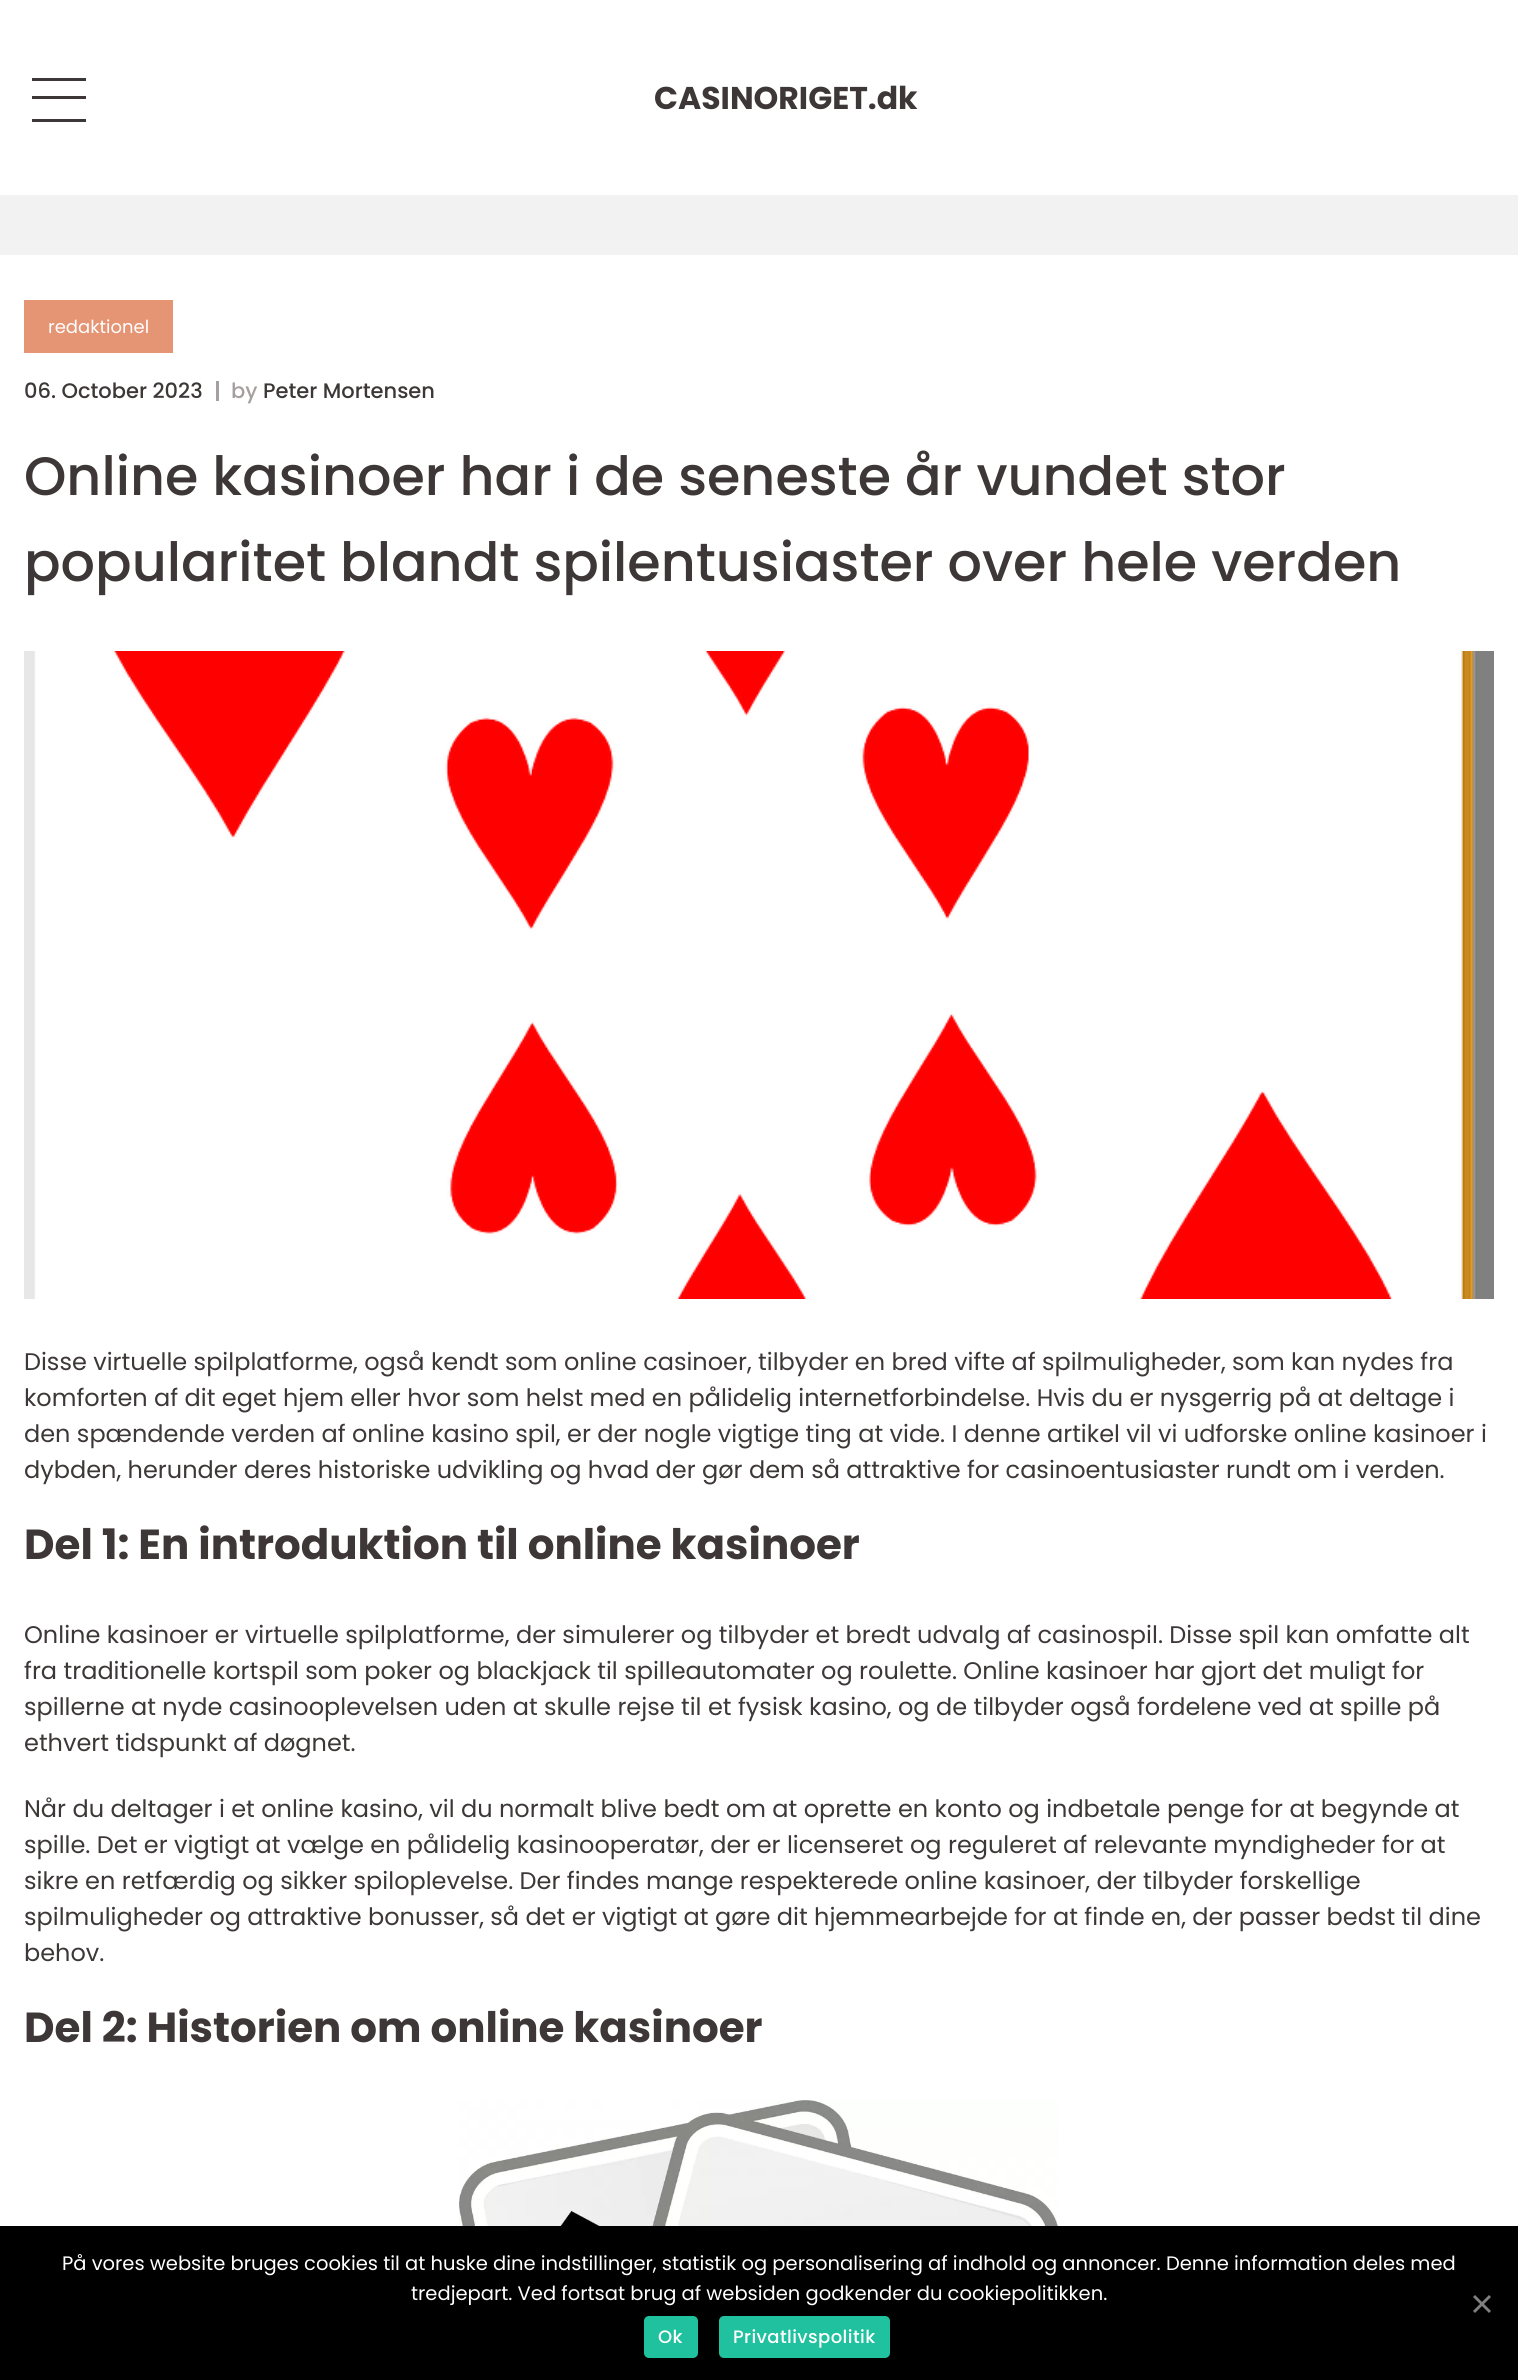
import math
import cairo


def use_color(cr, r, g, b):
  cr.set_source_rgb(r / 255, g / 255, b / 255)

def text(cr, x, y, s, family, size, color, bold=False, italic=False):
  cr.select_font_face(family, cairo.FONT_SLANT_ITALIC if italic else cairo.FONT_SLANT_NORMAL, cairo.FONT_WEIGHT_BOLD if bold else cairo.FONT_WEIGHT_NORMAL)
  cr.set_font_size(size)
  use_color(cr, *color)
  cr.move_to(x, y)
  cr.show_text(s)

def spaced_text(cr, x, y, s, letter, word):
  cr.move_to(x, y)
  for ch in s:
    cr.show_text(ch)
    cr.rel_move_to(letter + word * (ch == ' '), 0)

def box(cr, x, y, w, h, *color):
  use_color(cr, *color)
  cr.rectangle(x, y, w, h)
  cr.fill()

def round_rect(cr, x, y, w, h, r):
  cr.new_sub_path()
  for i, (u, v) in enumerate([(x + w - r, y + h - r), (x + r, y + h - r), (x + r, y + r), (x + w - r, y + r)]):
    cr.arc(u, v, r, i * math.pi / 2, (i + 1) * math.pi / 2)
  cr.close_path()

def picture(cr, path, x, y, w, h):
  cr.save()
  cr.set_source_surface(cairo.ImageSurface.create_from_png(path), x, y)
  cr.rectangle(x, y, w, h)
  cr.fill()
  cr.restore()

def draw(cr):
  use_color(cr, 242, 242, 242)
  cr.paint()
  box(cr, 0, 0, 1518, 195, 255, 255, 255)
  box(cr, 32, 78, 54, 3, 61, 55, 55)
  box(cr, 32, 96, 54, 3, 61, 55, 55)
  box(cr, 32, 119, 54, 3, 61, 55, 55)
  box(cr, 0, 255, 1518, 1971, 255, 255, 255)
  box(cr, 24, 300, 149, 53, 229, 148, 116)
  box(cr, 216, 381, 3, 20, 167, 159, 159)
  picture(cr, "img_01.png", 24, 651, 1470, 648)
  picture(cr, "img_02.png", 459, 2100, 600, 126)
  box(cr, 0, 2226, 1518, 154, 0, 0, 0)
  use_color(cr, 128, 128, 128)
  cr.new_path()
  cr.move_to(1489, 2295)
  cr.line_to(1491, 2297)
  cr.line_to(1475, 2313)
  cr.line_to(1473, 2311)
  cr.close_path()
  cr.fill()
  cr.new_path()
  cr.move_to(1473, 2297)
  cr.line_to(1475, 2295)
  cr.line_to(1491, 2311)
  cr.line_to(1489, 2313)
  cr.close_path()
  cr.fill()
  use_color(cr, 32, 193, 158)
  round_rect(cr, 644, 2316, 54, 42, 5)
  cr.fill()
  round_rect(cr, 719, 2316, 171, 42, 5)
  cr.fill()
  text(cr, 654, 109, "CASINORIGET.dk", "Poppins", 31.5, (61, 55, 55), bold=True)
  text(cr, 48, 333, "redaktionel", "Poppins", 18, (255, 255, 255))
  text(cr, 24, 398, "06. October 2023", "Poppins Medium", 21, (61, 55, 55))
  text(cr, 231, 398, "by", "Poppins Medium", 21, (167, 159, 159))
  text(cr, 263, 398, "Peter Mortensen", "Poppins Medium", 21, (61, 55, 55))
  text(cr, 24, 495, "Online kasinoer har i de seneste år vundet stor", "Poppins Medium", 54, (61, 55, 55))
  text(cr, 24, 581, "popularitet blandt spilentusiaster over hele verden", "Poppins Medium", 54, (61, 55, 55))
  text(cr, 24, 1370, "Disse virtuelle spilplatforme, også kendt som online casinoer, tilbyder en bred vifte af spilmuligheder, som kan nydes fra", "Poppins", 24, (61, 55, 55))
  text(cr, 24, 1406, "komforten af dit eget hjem eller hvor som helst med en pålidelig internetforbindelse. Hvis du er nysgerrig på at deltage i", "Poppins", 24, (61, 55, 55))
  text(cr, 24, 1442, "den spændende verden af online kasino spil, er der nogle vigtige ting at vide. I denne artikel vil vi udforske online kasinoer i", "Poppins", 24, (61, 55, 55))
  text(cr, 24, 1478, "dybden, herunder deres historiske udvikling og hvad der gør dem så attraktive for casinoentusiaster rundt om i verden.", "Poppins", 24, (61, 55, 55))
  text(cr, 24, 1559, "Del 1: En introduktion til online kasinoer", "Poppins", 42, (61, 55, 55), bold=True)
  text(cr, 24, 1643, "Online kasinoer er virtuelle spilplatforme, der simulerer og tilbyder et bredt udvalg af casinospil. Disse spil kan omfatte alt", "Poppins", 24, (61, 55, 55))
  text(cr, 24, 1679, "fra traditionelle kortspil som poker og blackjack til spilleautomater og roulette. Online kasinoer har gjort det muligt for", "Poppins", 24, (61, 55, 55))
  text(cr, 24, 1715, "spillerne at nyde casinooplevelsen uden at skulle rejse til et fysisk kasino, og de tilbyder også fordelene ved at spille på", "Poppins", 24, (61, 55, 55))
  text(cr, 24, 1751, "ethvert tidspunkt af døgnet.", "Poppins", 24, (61, 55, 55))
  text(cr, 24, 1817, "Når du deltager i et online kasino, vil du normalt blive bedt om at oprette en konto og indbetale penge for at begynde at", "Poppins", 24, (61, 55, 55))
  text(cr, 24, 1853, "spille. Det er vigtigt at vælge en pålidelig kasinooperatør, der er licenseret og reguleret af relevante myndigheder for at", "Poppins", 24, (61, 55, 55))
  text(cr, 24, 1889, "sikre en retfærdig og sikker spiloplevelse. Der findes mange respekterede online kasinoer, der tilbyder forskellige", "Poppins", 24, (61, 55, 55))
  text(cr, 24, 1925, "spilmuligheder og attraktive bonusser, så det er vigtigt at gøre dit hjemmearbejde for at finde en, der passer bedst til dine", "Poppins", 24, (61, 55, 55))
  text(cr, 24, 1961, "behov.", "Poppins", 24, (61, 55, 55))
  text(cr, 24, 2042, "Del 2: Historien om online kasinoer", "Poppins", 42, (61, 55, 55), bold=True)
  text(cr, 62, 2270, "På vores website bruges cookies til at huske dine indstillinger, statistik og personalisering af indhold og annoncer. Denne information deles med", "Poppins", 19.5, (255, 255, 255))
  text(cr, 411, 2300, "tredjepart. Ved fortsat brug af websiden godkender du cookiepolitikken.", "Poppins", 19.5, (255, 255, 255))
  cr.select_font_face("Poppins Medium")
  cr.set_font_size(18)
  spaced_text(cr, 658, 2343, "Ok", 0.4, 0)
  spaced_text(cr, 733, 2343, "Privatlivspolitik", 0.4, 0)


surface = cairo.ImageSurface(cairo.FORMAT_RGB24, 1518, 2380)
cr = cairo.Context(surface)
options = cairo.FontOptions()
options.set_hint_metrics(cairo.HINT_METRICS_OFF)
options.set_hint_style(cairo.HINT_STYLE_NONE)
cr.set_font_options(options)
cr.set_miter_limit(4)
draw(cr)
surface.write_to_png("out.png")
